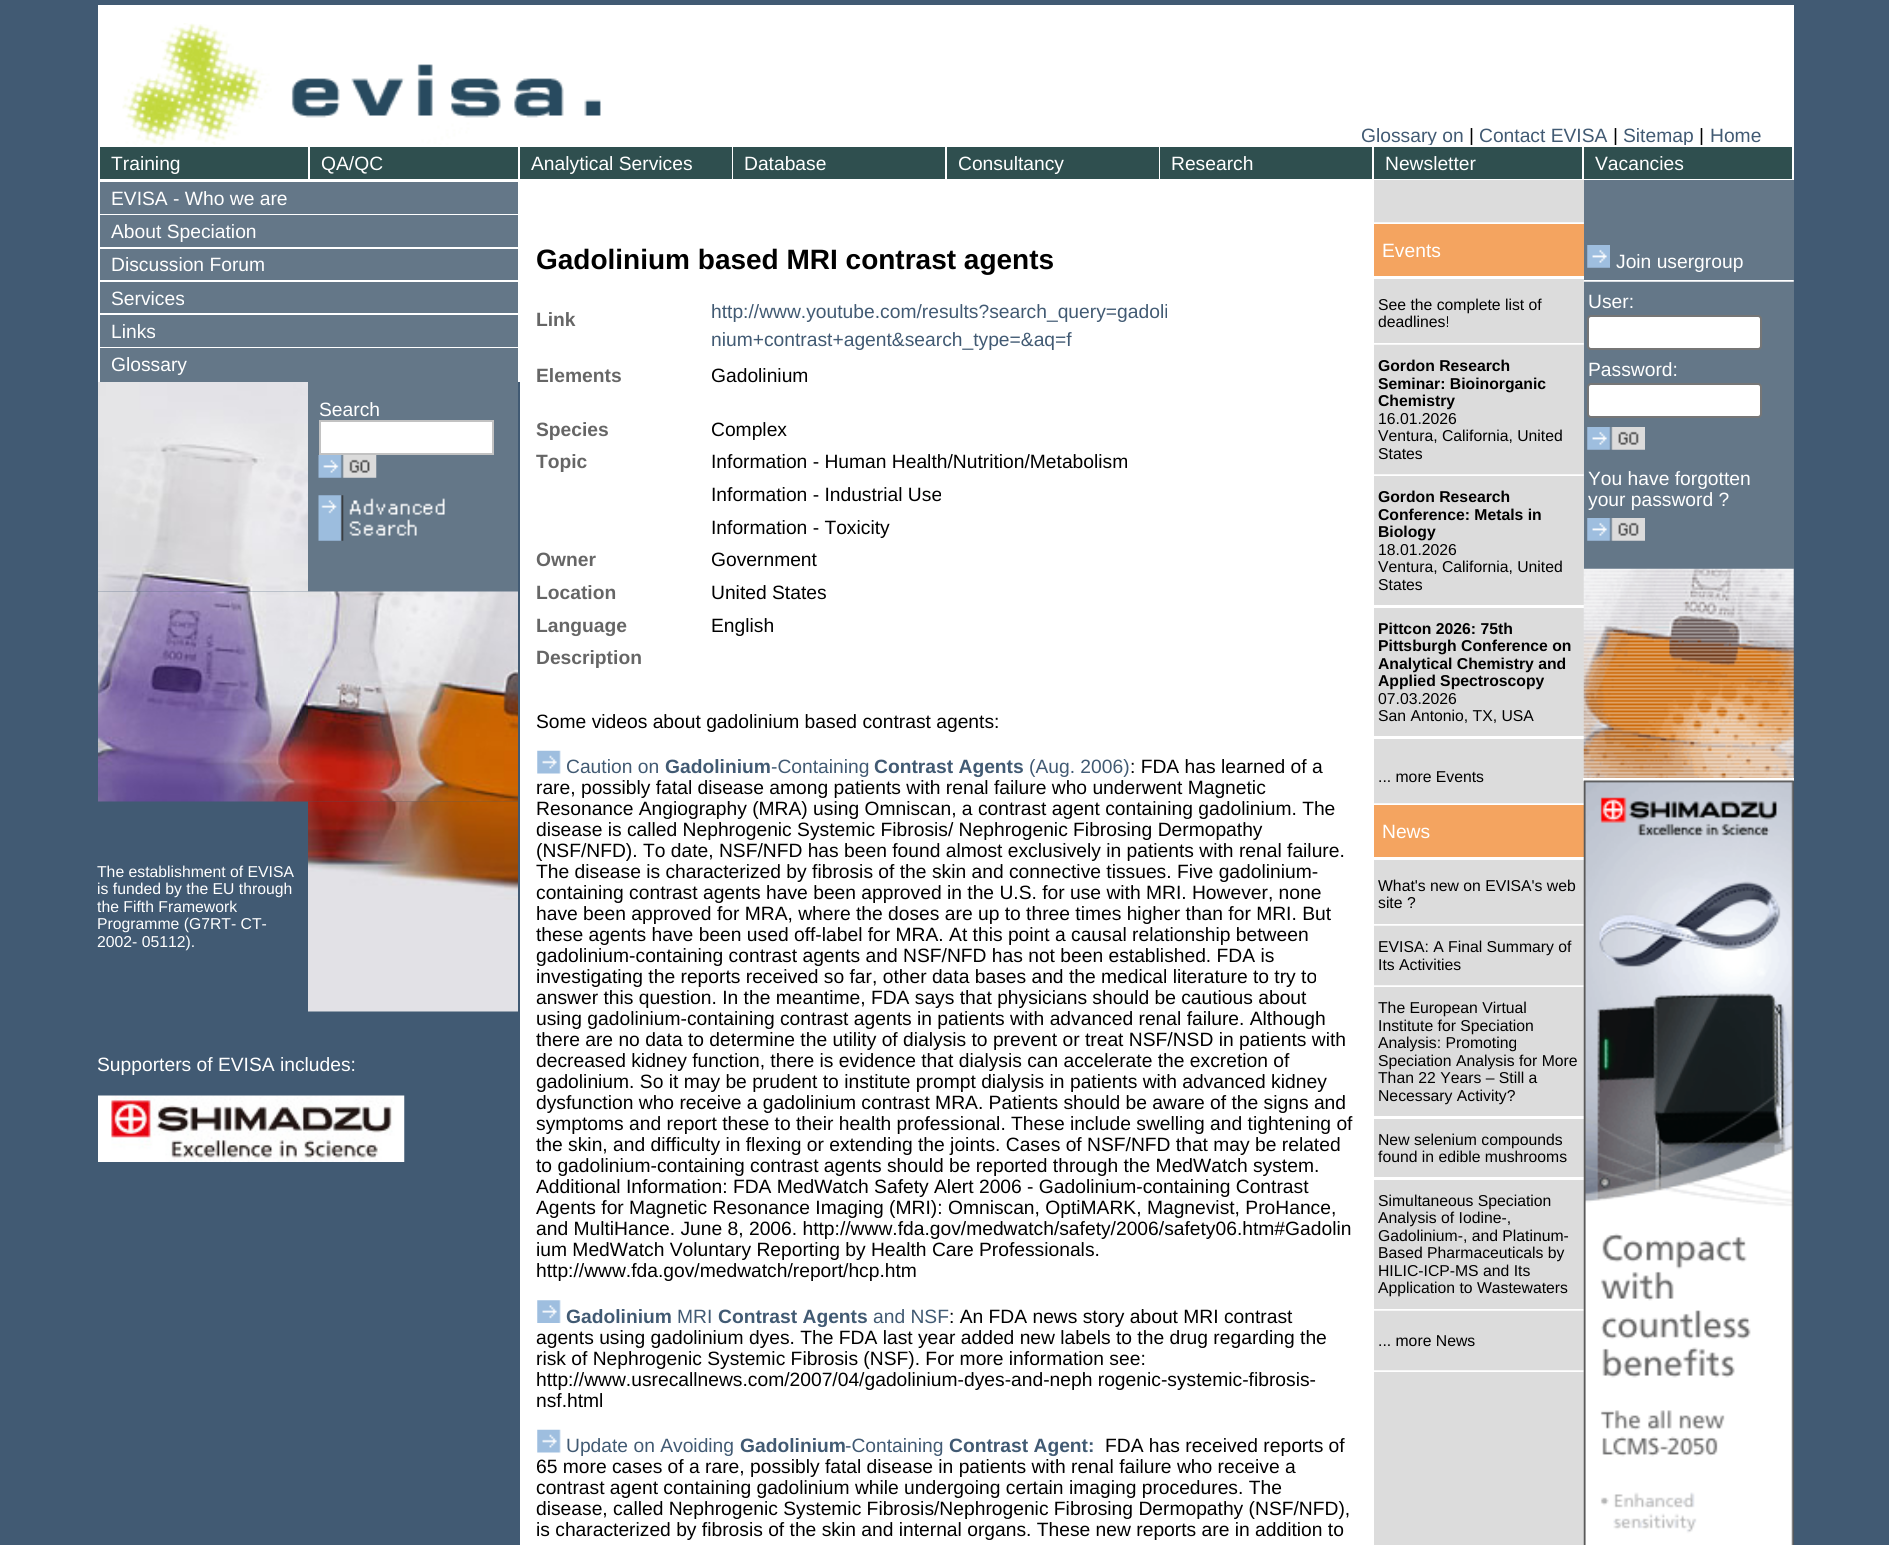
import math
import cairo


def use_color(cr, r, g, b):
  cr.set_source_rgb(r / 255, g / 255, b / 255)

def text(cr, x, y, s, family, size, color, bold=False, italic=False):
  cr.select_font_face(family, cairo.FONT_SLANT_ITALIC if italic else cairo.FONT_SLANT_NORMAL, cairo.FONT_WEIGHT_BOLD if bold else cairo.FONT_WEIGHT_NORMAL)
  cr.set_font_size(size)
  use_color(cr, *color)
  cr.move_to(x, y)
  cr.show_text(s)

def box(cr, x, y, w, h, *color):
  use_color(cr, *color)
  cr.rectangle(x, y, w, h)
  cr.fill()

def round_rect(cr, x, y, w, h, r):
  cr.new_sub_path()
  for i, (u, v) in enumerate([(x + w - r, y + h - r), (x + r, y + h - r), (x + r, y + r), (x + w - r, y + r)]):
    cr.arc(u, v, r, i * math.pi / 2, (i + 1) * math.pi / 2)
  cr.close_path()

def picture(cr, path, x, y, w, h):
  cr.save()
  cr.set_source_surface(cairo.ImageSurface.create_from_png(path), x, y)
  cr.rectangle(x, y, w, h)
  cr.fill()
  cr.restore()

def draw(cr):
  use_color(cr, 65, 90, 115)
  cr.paint()
  box(cr, 98, 5, 1696, 140, 255, 255, 255)
  picture(cr, "img_01.png", 98, 23, 525, 122)
  box(cr, 98, 180, 422, 202, 255, 255, 255)
  box(cr, 100, 182, 418, 32, 100, 119, 136)
  box(cr, 100, 215, 418, 32, 100, 119, 136)
  box(cr, 100, 249, 418, 31, 100, 119, 136)
  box(cr, 100, 282, 418, 31, 100, 119, 136)
  box(cr, 100, 315, 418, 32, 100, 119, 136)
  box(cr, 100, 348, 418, 34, 100, 119, 136)
  picture(cr, "img_02.png", 98, 382, 210, 210)
  box(cr, 308, 382, 210, 210, 100, 119, 136)
  use_color(cr, 255, 255, 255)
  cr.rectangle(320, 421, 173, 33)
  cr.fill_preserve()
  use_color(cr, 194, 194, 194)
  cr.stroke()
  picture(cr, "img_03.png", 318, 455, 59, 23)
  picture(cr, "img_04.png", 318, 495, 127, 46)
  picture(cr, "img_05.png", 98, 591, 210, 211)
  picture(cr, "img_06.png", 308, 591, 210, 211)
  picture(cr, "img_07.png", 308, 801, 210, 211)
  picture(cr, "img_08.png", 98, 1095, 307, 67)
  box(cr, 520, 180, 854, 1365, 255, 255, 255)
  picture(cr, "img_09.png", 537, 750, 24, 24)
  picture(cr, "img_10.png", 537, 1300, 24, 23)
  picture(cr, "img_09.png", 537, 1429, 24, 24)
  box(cr, 1374, 180, 210, 1365, 220, 220, 220)
  picture(cr, "img_11.png", 1374, 222, 210, 2)
  box(cr, 1374, 224, 210, 52, 244, 164, 96)
  box(cr, 1374, 276, 210, 3, 255, 255, 255)
  picture(cr, "img_12.png", 1374, 343, 210, 2)
  picture(cr, "img_11.png", 1374, 474, 210, 2)
  box(cr, 1374, 605, 210, 3, 255, 255, 255)
  box(cr, 1374, 736, 210, 3, 255, 255, 255)
  picture(cr, "img_11.png", 1374, 803, 210, 2)
  box(cr, 1374, 805, 210, 52, 244, 164, 96)
  box(cr, 1374, 857, 210, 3, 255, 255, 255)
  picture(cr, "img_12.png", 1374, 924, 210, 2)
  picture(cr, "img_11.png", 1374, 985, 210, 2)
  box(cr, 1374, 1116, 210, 3, 255, 255, 255)
  box(cr, 1374, 1177, 210, 3, 255, 255, 255)
  picture(cr, "img_12.png", 1374, 1309, 210, 2)
  picture(cr, "img_11.png", 1374, 1370, 210, 2)
  box(cr, 1584, 180, 210, 389, 100, 119, 136)
  picture(cr, "img_13.png", 1587, 245, 23, 23)
  picture(cr, "img_14.png", 1583, 280, 211, 2)
  use_color(cr, 255, 255, 255)
  round_rect(cr, 1588, 316, 173, 33, 3)
  cr.fill_preserve()
  use_color(cr, 118, 118, 118)
  cr.stroke()
  use_color(cr, 255, 255, 255)
  round_rect(cr, 1588, 384, 173, 33, 3)
  cr.fill_preserve()
  use_color(cr, 118, 118, 118)
  cr.stroke()
  picture(cr, "img_15.png", 1587, 427, 58, 23)
  picture(cr, "img_15.png", 1587, 518, 58, 23)
  picture(cr, "img_16.png", 1583, 568, 211, 210)
  box(cr, 1583, 778, 211, 3, 255, 255, 255)
  picture(cr, "img_17.png", 1583, 780, 211, 765)
  text(cr, 1361, 142, "Glossary on", "Liberation Sans", 19.25, (65, 90, 115))
  text(cr, 1469, 142, "|", "Liberation Sans", 19.25, (0, 0, 0))
  text(cr, 1479, 142, "Contact EVISA", "Liberation Sans", 19.25, (65, 90, 115))
  text(cr, 1613, 142, "|", "Liberation Sans", 19.25, (0, 0, 0))
  text(cr, 1623, 142, "Sitemap", "Liberation Sans", 19.25, (65, 90, 115))
  text(cr, 1699, 142, "|", "Liberation Sans", 19.25, (0, 0, 0))
  text(cr, 1710, 142, "Home", "Liberation Sans", 19.25, (65, 90, 115))
  box(cr, 98, 145, 1696, 35, 255, 255, 255)
  box(cr, 100, 147, 208, 32, 47, 79, 79)
  text(cr, 111, 170, "Training", "Liberation Sans", 19.25, (255, 255, 255))
  box(cr, 310, 147, 208, 32, 47, 79, 79)
  text(cr, 321, 170, "QA/QC", "Liberation Sans", 19.25, (255, 255, 255))
  box(cr, 520, 147, 212, 32, 47, 79, 79)
  text(cr, 531, 170, "Analytical Services", "Liberation Sans", 19.25, (255, 255, 255))
  box(cr, 733, 147, 212, 32, 47, 79, 79)
  text(cr, 744, 170, "Database", "Liberation Sans", 19.25, (255, 255, 255))
  box(cr, 947, 147, 212, 32, 47, 79, 79)
  text(cr, 958, 170, "Consultancy", "Liberation Sans", 19.25, (255, 255, 255))
  box(cr, 1160, 147, 212, 32, 47, 79, 79)
  text(cr, 1171, 170, "Research", "Liberation Sans", 19.25, (255, 255, 255))
  box(cr, 1374, 147, 208, 32, 47, 79, 79)
  text(cr, 1385, 170, "Newsletter", "Liberation Sans", 19.25, (255, 255, 255))
  box(cr, 1584, 147, 208, 32, 47, 79, 79)
  text(cr, 1595, 170, "Vacancies", "Liberation Sans", 19.25, (255, 255, 255))
  text(cr, 111, 205, "EVISA - Who we are", "Liberation Sans", 19.25, (255, 255, 255))
  text(cr, 111, 238, "About Speciation", "Liberation Sans", 19.25, (255, 255, 255))
  text(cr, 111, 271, "Discussion Forum", "Liberation Sans", 19.25, (255, 255, 255))
  text(cr, 111, 305, "Services", "Liberation Sans", 19.25, (255, 255, 255))
  text(cr, 111, 338, "Links", "Liberation Sans", 19.25, (255, 255, 255))
  text(cr, 111, 371, "Glossary", "Liberation Sans", 19.25, (255, 255, 255))
  text(cr, 319, 416, "Search", "Liberation Sans", 19.25, (255, 255, 255))
  text(cr, 97, 877, "The establishment of EVISA", "Liberation Sans", 15.75, (255, 255, 255))
  text(cr, 97, 894, "is funded by the EU through", "Liberation Sans", 15.75, (255, 255, 255))
  text(cr, 97, 912, "the Fifth Framework", "Liberation Sans", 15.75, (255, 255, 255))
  text(cr, 97, 929, "Programme (G7RT- CT-", "Liberation Sans", 15.75, (255, 255, 255))
  text(cr, 97, 947, "2002- 05112).", "Liberation Sans", 15.75, (255, 255, 255))
  text(cr, 97, 1071, "Supporters of EVISA includes:", "Liberation Sans", 19.25, (255, 255, 255))
  text(cr, 536, 269, "Gadolinium based MRI contrast agents", "Liberation Sans", 28, (0, 0, 0), bold=True)
  text(cr, 536, 326, "Link", "Liberation Sans", 19.25, (102, 102, 102), bold=True)
  text(cr, 711, 318, "http://www.youtube.com/results?search_query=gadoli", "Liberation Sans", 19.25, (65, 90, 115))
  text(cr, 711, 346, "nium+contrast+agent&search_type=&aq=f", "Liberation Sans", 19.25, (65, 90, 115))
  text(cr, 536, 382, "Elements", "Liberation Sans", 19.25, (102, 102, 102), bold=True)
  text(cr, 711, 382, "Gadolinium", "Liberation Sans", 19.25, (0, 0, 0))
  text(cr, 536, 436, "Species", "Liberation Sans", 19.25, (102, 102, 102), bold=True)
  text(cr, 711, 436, "Complex", "Liberation Sans", 19.25, (0, 0, 0))
  text(cr, 536, 468, "Topic", "Liberation Sans", 19.25, (102, 102, 102), bold=True)
  text(cr, 711, 468, "Information - Human Health/Nutrition/Metabolism", "Liberation Sans", 19.25, (0, 0, 0))
  text(cr, 711, 501, "Information - Industrial Use", "Liberation Sans", 19.25, (0, 0, 0))
  text(cr, 711, 534, "Information - Toxicity", "Liberation Sans", 19.25, (0, 0, 0))
  text(cr, 536, 566, "Owner", "Liberation Sans", 19.25, (102, 102, 102), bold=True)
  text(cr, 711, 566, "Government", "Liberation Sans", 19.25, (0, 0, 0))
  text(cr, 536, 599, "Location", "Liberation Sans", 19.25, (102, 102, 102), bold=True)
  text(cr, 711, 599, "United States", "Liberation Sans", 19.25, (0, 0, 0))
  text(cr, 536, 632, "Language", "Liberation Sans", 19.25, (102, 102, 102), bold=True)
  text(cr, 711, 632, "English", "Liberation Sans", 19.25, (0, 0, 0))
  text(cr, 536, 664, "Description", "Liberation Sans", 19.25, (102, 102, 102), bold=True)
  text(cr, 536, 728, "Some videos about gadolinium based contrast agents:", "Liberation Sans", 19.25, (0, 0, 0))
  text(cr, 566, 773, "Caution on", "Liberation Sans", 19.25, (65, 90, 115))
  text(cr, 665, 773, "Gadolinium", "Liberation Sans", 19.25, (65, 90, 115), bold=True)
  text(cr, 771, 773, "-Containing", "Liberation Sans", 19.25, (65, 90, 115))
  text(cr, 874, 773, "Contrast Agents", "Liberation Sans", 19.25, (65, 90, 115), bold=True)
  text(cr, 1029, 773, "(Aug. 2006)", "Liberation Sans", 19.25, (65, 90, 115))
  text(cr, 1130, 773, ": FDA has learned of a", "Liberation Sans", 19.25, (0, 0, 0))
  text(cr, 536, 794, "rare, possibly fatal disease among patients with renal failure who underwent Magnetic", "Liberation Sans", 19.25, (0, 0, 0))
  text(cr, 536, 815, "Resonance Angiography (MRA) using Omniscan, a contrast agent containing gadolinium. The", "Liberation Sans", 19.25, (0, 0, 0))
  text(cr, 536, 836, "disease is called Nephrogenic Systemic Fibrosis/ Nephrogenic Fibrosing Dermopathy", "Liberation Sans", 19.25, (0, 0, 0))
  text(cr, 536, 857, "(NSF/NFD). To date, NSF/NFD has been found almost exclusively in patients with renal failure.", "Liberation Sans", 19.25, (0, 0, 0))
  text(cr, 536, 878, "The disease is characterized by fibrosis of the skin and connective tissues. Five gadolinium-", "Liberation Sans", 19.25, (0, 0, 0))
  text(cr, 536, 899, "containing contrast agents have been approved in the U.S. for use with MRI. However, none", "Liberation Sans", 19.25, (0, 0, 0))
  text(cr, 536, 920, "have been approved for MRA, where the doses are up to three times higher than for MRI. But", "Liberation Sans", 19.25, (0, 0, 0))
  text(cr, 536, 941, "these agents have been used off-label for MRA. At this point a causal relationship between", "Liberation Sans", 19.25, (0, 0, 0))
  text(cr, 536, 962, "gadolinium-containing contrast agents and NSF/NFD has not been established. FDA is", "Liberation Sans", 19.25, (0, 0, 0))
  text(cr, 536, 983, "investigating the reports received so far, other data bases and the medical literature to try to", "Liberation Sans", 19.25, (0, 0, 0))
  text(cr, 536, 1004, "answer this question. In the meantime, FDA says that physicians should be cautious about", "Liberation Sans", 19.25, (0, 0, 0))
  text(cr, 536, 1025, "using gadolinium-containing contrast agents in patients with advanced renal failure. Although", "Liberation Sans", 19.25, (0, 0, 0))
  text(cr, 536, 1046, "there are no data to determine the utility of dialysis to prevent or treat NSF/NSD in patients with", "Liberation Sans", 19.25, (0, 0, 0))
  text(cr, 536, 1067, "decreased kidney function, there is evidence that dialysis can accelerate the excretion of", "Liberation Sans", 19.25, (0, 0, 0))
  text(cr, 536, 1088, "gadolinium. So it may be prudent to institute prompt dialysis in patients with advanced kidney", "Liberation Sans", 19.25, (0, 0, 0))
  text(cr, 536, 1109, "dysfunction who receive a gadolinium contrast MRA. Patients should be aware of the signs and", "Liberation Sans", 19.25, (0, 0, 0))
  text(cr, 536, 1130, "symptoms and report these to their health professional. These include swelling and tightening of", "Liberation Sans", 19.25, (0, 0, 0))
  text(cr, 536, 1151, "the skin, and difficulty in flexing or extending the joints. Cases of NSF/NFD that may be related", "Liberation Sans", 19.25, (0, 0, 0))
  text(cr, 536, 1172, "to gadolinium-containing contrast agents should be reported through the MedWatch system.", "Liberation Sans", 19.25, (0, 0, 0))
  text(cr, 536, 1193, "Additional Information: FDA MedWatch Safety Alert 2006 - Gadolinium-containing Contrast", "Liberation Sans", 19.25, (0, 0, 0))
  text(cr, 536, 1214, "Agents for Magnetic Resonance Imaging (MRI): Omniscan, OptiMARK, Magnevist, ProHance,", "Liberation Sans", 19.25, (0, 0, 0))
  text(cr, 536, 1235, "and MultiHance. June 8, 2006. http://www.fda.gov/medwatch/safety/2006/safety06.htm#Gadolin", "Liberation Sans", 19.25, (0, 0, 0))
  text(cr, 536, 1256, "ium MedWatch Voluntary Reporting by Health Care Professionals.", "Liberation Sans", 19.25, (0, 0, 0))
  text(cr, 536, 1277, "http://www.fda.gov/medwatch/report/hcp.htm", "Liberation Sans", 19.25, (0, 0, 0))
  text(cr, 566, 1323, "Gadolinium", "Liberation Sans", 19.25, (65, 90, 115), bold=True)
  text(cr, 677, 1323, "MRI", "Liberation Sans", 19.25, (65, 90, 115))
  text(cr, 718, 1323, "Contrast Agents", "Liberation Sans", 19.25, (65, 90, 115), bold=True)
  text(cr, 873, 1323, "and NSF", "Liberation Sans", 19.25, (65, 90, 115))
  text(cr, 949, 1323, ": An FDA news story about MRI contrast", "Liberation Sans", 19.25, (0, 0, 0))
  text(cr, 536, 1344, "agents using gadolinium dyes. The FDA last year added new labels to the drug regarding the", "Liberation Sans", 19.25, (0, 0, 0))
  text(cr, 536, 1365, "risk of Nephrogenic Systemic Fibrosis (NSF). For more information see:", "Liberation Sans", 19.25, (0, 0, 0))
  text(cr, 536, 1386, "http://www.usrecallnews.com/2007/04/gadolinium-dyes-and-neph rogenic-systemic-fibrosis-", "Liberation Sans", 19.25, (0, 0, 0))
  text(cr, 536, 1407, "nsf.html", "Liberation Sans", 19.25, (0, 0, 0))
  text(cr, 566, 1452, "Update on Avoiding", "Liberation Sans", 19.25, (65, 90, 115))
  text(cr, 740, 1452, "Gadolinium", "Liberation Sans", 19.25, (65, 90, 115), bold=True)
  text(cr, 845, 1452, "-Containing", "Liberation Sans", 19.25, (65, 90, 115))
  text(cr, 949, 1452, "Contrast Agent:", "Liberation Sans", 19.25, (65, 90, 115), bold=True)
  text(cr, 1105, 1452, "FDA has received reports of", "Liberation Sans", 19.25, (0, 0, 0))
  text(cr, 536, 1473, "65 more cases of a rare, possibly fatal disease in patients with renal failure who receive a", "Liberation Sans", 19.25, (0, 0, 0))
  text(cr, 536, 1494, "contrast agent containing gadolinium while undergoing certain imaging procedures. The", "Liberation Sans", 19.25, (0, 0, 0))
  text(cr, 536, 1515, "disease, called Nephrogenic Systemic Fibrosis/Nephrogenic Fibrosing Dermopathy (NSF/NFD),", "Liberation Sans", 19.25, (0, 0, 0))
  text(cr, 536, 1536, "is characterized by fibrosis of the skin and internal organs. These new reports are in addition to", "Liberation Sans", 19.25, (0, 0, 0))
  text(cr, 1382, 257, "Events", "Liberation Sans", 19.25, (255, 255, 255))
  text(cr, 1378, 310, "See the complete list of", "Liberation Sans", 15.75, (0, 0, 0))
  text(cr, 1378, 327, "deadlines!", "Liberation Sans", 15.75, (0, 0, 0))
  text(cr, 1378, 371, "Gordon Research", "Liberation Sans", 15.75, (0, 0, 0), bold=True)
  text(cr, 1378, 389, "Seminar: Bioinorganic", "Liberation Sans", 15.75, (0, 0, 0), bold=True)
  text(cr, 1378, 406, "Chemistry", "Liberation Sans", 15.75, (0, 0, 0), bold=True)
  text(cr, 1378, 424, "16.01.2026", "Liberation Sans", 15.75, (0, 0, 0))
  text(cr, 1378, 441, "Ventura, California, United", "Liberation Sans", 15.75, (0, 0, 0))
  text(cr, 1378, 459, "States", "Liberation Sans", 15.75, (0, 0, 0))
  text(cr, 1378, 502, "Gordon Research", "Liberation Sans", 15.75, (0, 0, 0), bold=True)
  text(cr, 1378, 520, "Conference: Metals in", "Liberation Sans", 15.75, (0, 0, 0), bold=True)
  text(cr, 1378, 537, "Biology", "Liberation Sans", 15.75, (0, 0, 0), bold=True)
  text(cr, 1378, 555, "18.01.2026", "Liberation Sans", 15.75, (0, 0, 0))
  text(cr, 1378, 572, "Ventura, California, United", "Liberation Sans", 15.75, (0, 0, 0))
  text(cr, 1378, 590, "States", "Liberation Sans", 15.75, (0, 0, 0))
  text(cr, 1378, 634, "Pittcon 2026: 75th", "Liberation Sans", 15.75, (0, 0, 0), bold=True)
  text(cr, 1378, 651, "Pittsburgh Conference on", "Liberation Sans", 15.75, (0, 0, 0), bold=True)
  text(cr, 1378, 669, "Analytical Chemistry and", "Liberation Sans", 15.75, (0, 0, 0), bold=True)
  text(cr, 1378, 686, "Applied Spectroscopy", "Liberation Sans", 15.75, (0, 0, 0), bold=True)
  text(cr, 1378, 704, "07.03.2026", "Liberation Sans", 15.75, (0, 0, 0))
  text(cr, 1378, 721, "San Antonio, TX, USA", "Liberation Sans", 15.75, (0, 0, 0))
  text(cr, 1378, 782, "... more Events", "Liberation Sans", 15.75, (0, 0, 0))
  text(cr, 1382, 838, "News", "Liberation Sans", 19.25, (255, 255, 255))
  text(cr, 1378, 891, "What's new on EVISA's web", "Liberation Sans", 15.75, (0, 0, 0))
  text(cr, 1378, 908, "site ?", "Liberation Sans", 15.75, (0, 0, 0))
  text(cr, 1378, 952, "EVISA: A Final Summary of", "Liberation Sans", 15.75, (0, 0, 0))
  text(cr, 1378, 970, "Its Activities", "Liberation Sans", 15.75, (0, 0, 0))
  text(cr, 1378, 1013, "The European Virtual", "Liberation Sans", 15.75, (0, 0, 0))
  text(cr, 1378, 1031, "Institute for Speciation", "Liberation Sans", 15.75, (0, 0, 0))
  text(cr, 1378, 1048, "Analysis: Promoting", "Liberation Sans", 15.75, (0, 0, 0))
  text(cr, 1378, 1066, "Speciation Analysis for More", "Liberation Sans", 15.75, (0, 0, 0))
  text(cr, 1378, 1083, "Than 22 Years – Still a", "Liberation Sans", 15.75, (0, 0, 0))
  text(cr, 1378, 1101, "Necessary Activity?", "Liberation Sans", 15.75, (0, 0, 0))
  text(cr, 1378, 1145, "New selenium compounds", "Liberation Sans", 15.75, (0, 0, 0))
  text(cr, 1378, 1162, "found in edible mushrooms", "Liberation Sans", 15.75, (0, 0, 0))
  text(cr, 1378, 1206, "Simultaneous Speciation", "Liberation Sans", 15.75, (0, 0, 0))
  text(cr, 1378, 1223, "Analysis of Iodine-,", "Liberation Sans", 15.75, (0, 0, 0))
  text(cr, 1378, 1241, "Gadolinium-, and Platinum-", "Liberation Sans", 15.75, (0, 0, 0))
  text(cr, 1378, 1258, "Based Pharmaceuticals by", "Liberation Sans", 15.75, (0, 0, 0))
  text(cr, 1378, 1276, "HILIC-ICP-MS and Its", "Liberation Sans", 15.75, (0, 0, 0))
  text(cr, 1378, 1293, "Application to Wastewaters", "Liberation Sans", 15.75, (0, 0, 0))
  text(cr, 1378, 1346, "... more News", "Liberation Sans", 15.75, (0, 0, 0))
  text(cr, 1616, 268, "Join usergroup", "Liberation Sans", 19.25, (255, 255, 255))
  text(cr, 1588, 308, "User:", "Liberation Sans", 19.25, (255, 255, 255))
  text(cr, 1588, 376, "Password:", "Liberation Sans", 19.25, (255, 255, 255))
  text(cr, 1588, 485, "You have forgotten", "Liberation Sans", 19.25, (255, 255, 255))
  text(cr, 1588, 506, "your password ?", "Liberation Sans", 19.25, (255, 255, 255))


surface = cairo.ImageSurface(cairo.FORMAT_RGB24, 1889, 1545)
cr = cairo.Context(surface)
options = cairo.FontOptions()
options.set_hint_metrics(cairo.HINT_METRICS_OFF)
options.set_hint_style(cairo.HINT_STYLE_NONE)
cr.set_font_options(options)
cr.set_miter_limit(4)
draw(cr)
surface.write_to_png("out.png")
